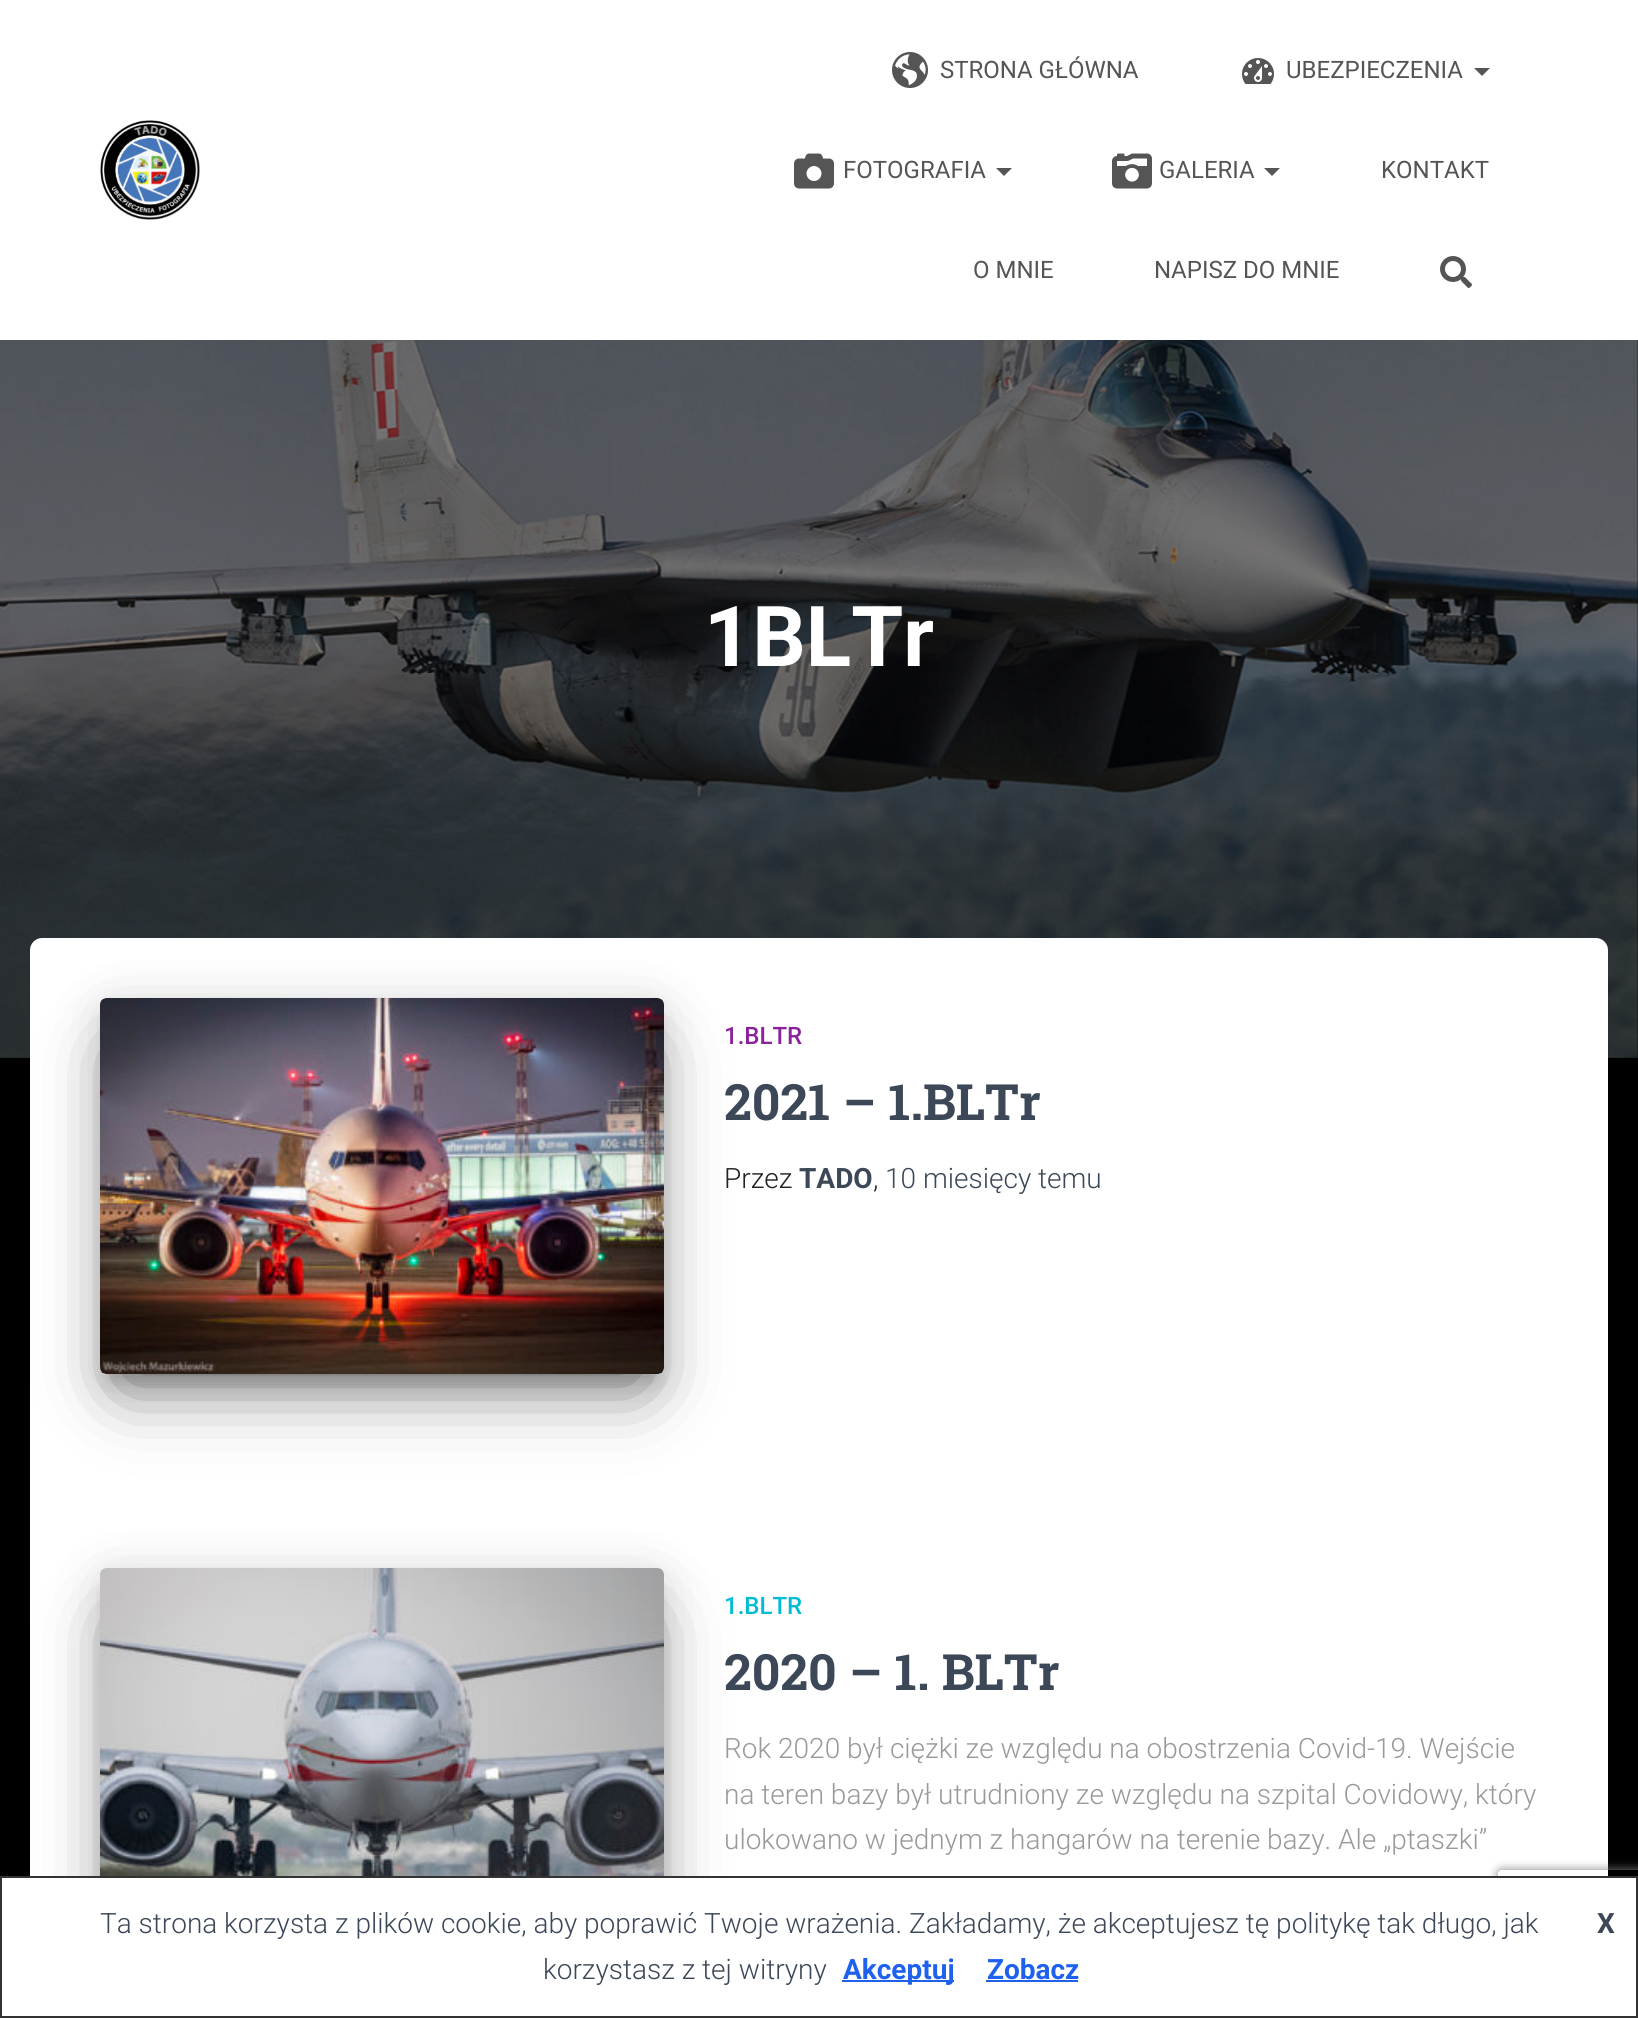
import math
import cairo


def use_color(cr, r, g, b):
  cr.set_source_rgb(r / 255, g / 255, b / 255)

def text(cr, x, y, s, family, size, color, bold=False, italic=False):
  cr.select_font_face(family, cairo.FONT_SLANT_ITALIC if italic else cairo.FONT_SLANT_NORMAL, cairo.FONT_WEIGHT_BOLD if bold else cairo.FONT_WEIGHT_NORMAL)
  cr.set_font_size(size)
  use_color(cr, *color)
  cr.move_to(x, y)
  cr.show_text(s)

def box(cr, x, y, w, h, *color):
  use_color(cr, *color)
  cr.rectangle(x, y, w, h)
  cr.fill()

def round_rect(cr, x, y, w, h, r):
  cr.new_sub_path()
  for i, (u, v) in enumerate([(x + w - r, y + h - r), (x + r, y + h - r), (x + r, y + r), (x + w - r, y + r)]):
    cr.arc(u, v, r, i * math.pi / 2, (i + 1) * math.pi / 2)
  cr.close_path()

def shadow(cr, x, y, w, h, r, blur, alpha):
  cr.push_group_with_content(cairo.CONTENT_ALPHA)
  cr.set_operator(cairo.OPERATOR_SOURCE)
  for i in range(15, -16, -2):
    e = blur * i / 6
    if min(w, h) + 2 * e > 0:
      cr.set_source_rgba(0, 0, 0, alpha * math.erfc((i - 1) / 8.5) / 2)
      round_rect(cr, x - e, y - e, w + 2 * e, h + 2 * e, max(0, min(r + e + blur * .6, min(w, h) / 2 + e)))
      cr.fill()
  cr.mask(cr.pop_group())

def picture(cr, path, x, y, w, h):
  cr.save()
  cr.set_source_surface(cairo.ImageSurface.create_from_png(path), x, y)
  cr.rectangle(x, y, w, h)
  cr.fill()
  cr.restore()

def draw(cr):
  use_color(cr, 0, 0, 0)
  cr.paint()
  box(cr, 0, 0, 1638, 340, 255, 255, 255)
  picture(cr, "img_01.png", 100, 120, 100, 100)
  picture(cr, "img_02.png", 892, 52, 36, 36)
  picture(cr, "img_03.png", 1242, 58, 32, 26)
  use_color(cr, 85, 85, 85)
  cr.new_path()
  cr.move_to(1474, 68)
  cr.line_to(1490, 68)
  cr.line_to(1482, 76)
  cr.close_path()
  cr.fill()
  picture(cr, "img_04.png", 794, 153, 40, 36)
  cr.new_path()
  cr.move_to(996, 168)
  cr.line_to(1012, 168)
  cr.line_to(1004, 176)
  cr.close_path()
  cr.fill()
  picture(cr, "img_05.png", 1112, 153, 40, 36)
  cr.new_path()
  cr.move_to(1264, 168)
  cr.line_to(1280, 168)
  cr.line_to(1272, 176)
  cr.close_path()
  cr.fill()
  picture(cr, "img_06.png", 1440, 256, 32, 32)
  picture(cr, "img_07.png", 0, 340, 1638, 718)
  use_color(cr, 255, 255, 255)
  cr.new_path()
  cr.move_to(42, 938)
  cr.line_to(1596, 938)
  cr.curve_to(1602.5, 938, 1608, 943.5, 1608, 950)
  cr.line_to(1608, 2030)
  cr.line_to(30, 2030)
  cr.line_to(30, 950)
  cr.curve_to(30, 943.5, 35.5, 938, 42, 938)
  cr.close_path()
  cr.fill()
  use_color(cr, 0, 0, 0)
  shadow(cr, 110, 1024, 544, 356, 0, 10, 0.2)
  shadow(cr, 100, 1006, 564, 376, 6, 25, 0.12)
  shadow(cr, 124, 1054, 516, 328, 0, 38, 0.56)
  picture(cr, "img_08.png", 100, 998, 564, 376)
  shadow(cr, 110, 1594, 544, 356, 0, 10, 0.2)
  shadow(cr, 100, 1576, 564, 376, 6, 25, 0.12)
  shadow(cr, 124, 1624, 516, 328, 0, 38, 0.56)
  picture(cr, "img_09.png", 100, 1568, 564, 308)
  cr.save()
  cr.set_fill_rule(cairo.FILL_RULE_EVEN_ODD)
  cr.new_path()
  cr.move_to(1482, 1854)
  cr.line_to(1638, 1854)
  cr.line_to(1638, 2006)
  cr.line_to(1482, 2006)
  cr.close_path()
  cr.move_to(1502, 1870)
  cr.line_to(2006, 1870)
  cr.curve_to(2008, 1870, 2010, 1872, 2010, 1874)
  cr.line_to(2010, 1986)
  cr.curve_to(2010, 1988, 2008, 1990, 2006, 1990)
  cr.line_to(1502, 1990)
  cr.curve_to(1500, 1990, 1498, 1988, 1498, 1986)
  cr.line_to(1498, 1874)
  cr.curve_to(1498, 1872, 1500, 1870, 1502, 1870)
  cr.close_path()
  cr.clip()
  use_color(cr, 128, 128, 128)
  shadow(cr, 1498, 1870, 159, 120, 4, 5, 1)
  cr.restore()
  use_color(cr, 255, 255, 255)
  cr.rectangle(1, 1877, 1636, 140)
  cr.fill_preserve()
  use_color(cr, 51, 51, 51)
  cr.stroke()
  box(cr, 842, 1980, 112, 2, 31, 97, 239)
  box(cr, 986, 1980, 92, 2, 31, 97, 239)
  text(cr, 940, 78, "STRONA GŁÓWNA", "Roboto", 24, (85, 85, 85))
  text(cr, 1286, 78, "UBEZPIECZENIA", "Roboto", 24, (85, 85, 85))
  text(cr, 843, 178, "FOTOGRAFIA", "Roboto", 24, (85, 85, 85))
  text(cr, 1159, 178, "GALERIA", "Roboto", 24, (85, 85, 85))
  text(cr, 1381, 178, "KONTAKT", "Roboto", 24, (85, 85, 85))
  text(cr, 973, 278, "O MNIE", "Roboto", 24, (85, 85, 85))
  text(cr, 1154, 278, "NAPISZ DO MNIE", "Roboto", 24, (85, 85, 85))
  text(cr, 704, 666, "1BLTr", "Roboto", 84, (255, 255, 255), bold=True)
  text(cr, 724, 1044, "1.BLTR", "Roboto Medium", 24, (137, 34, 155))
  text(cr, 724, 1120, "2021 – 1.BLTr", "Roboto Slab", 50, (60, 72, 88), bold=True)
  text(cr, 724, 1188, "Przez", "Roboto Light", 28, (33, 33, 33))
  text(cr, 799, 1188, "TADO", "Roboto", 28, (60, 72, 88), bold=True)
  text(cr, 873, 1188, ",", "Roboto Light", 28, (33, 33, 33))
  text(cr, 885, 1188, "10 miesięcy temu", "Roboto Light", 28, (60, 72, 88))
  text(cr, 724, 1614, "1.BLTR", "Roboto Medium", 24, (0, 188, 212))
  text(cr, 724, 1690, "2020 – 1. BLTr", "Roboto Slab", 50, (60, 72, 88), bold=True)
  text(cr, 724, 1758, "Rok 2020 był ciężki ze względu na obostrzenia Covid-19. Wejście", "Roboto Light", 28, (153, 153, 153))
  text(cr, 724, 1804, "na teren bazy był utrudniony ze względu na szpital Covidowy, który", "Roboto Light", 28, (153, 153, 153))
  text(cr, 724, 1849, "ulokowano w jednym z hangarów na terenie bazy. Ale „ptaszki”", "Roboto Light", 28, (153, 153, 153))
  text(cr, 100, 1933, "Ta strona korzysta z plików cookie, aby poprawić Twoje wrażenia. Zakładamy, że akceptujesz tę politykę tak długo, jak", "Roboto Light", 28, (60, 72, 88))
  text(cr, 1597, 1933, "X", "Roboto", 28, (60, 72, 88), bold=True)
  text(cr, 543, 1979, "korzystasz z tej witryny", "Roboto Light", 28, (60, 72, 88))
  text(cr, 843, 1979, "Akceptuj", "Roboto", 28, (31, 97, 239), bold=True)
  text(cr, 987, 1979, "Zobacz", "Roboto", 28, (31, 97, 239), bold=True)


surface = cairo.ImageSurface(cairo.FORMAT_RGB24, 1638, 2018)
cr = cairo.Context(surface)
options = cairo.FontOptions()
options.set_hint_metrics(cairo.HINT_METRICS_OFF)
options.set_hint_style(cairo.HINT_STYLE_NONE)
cr.set_font_options(options)
cr.set_miter_limit(4)
draw(cr)
surface.write_to_png("out.png")
